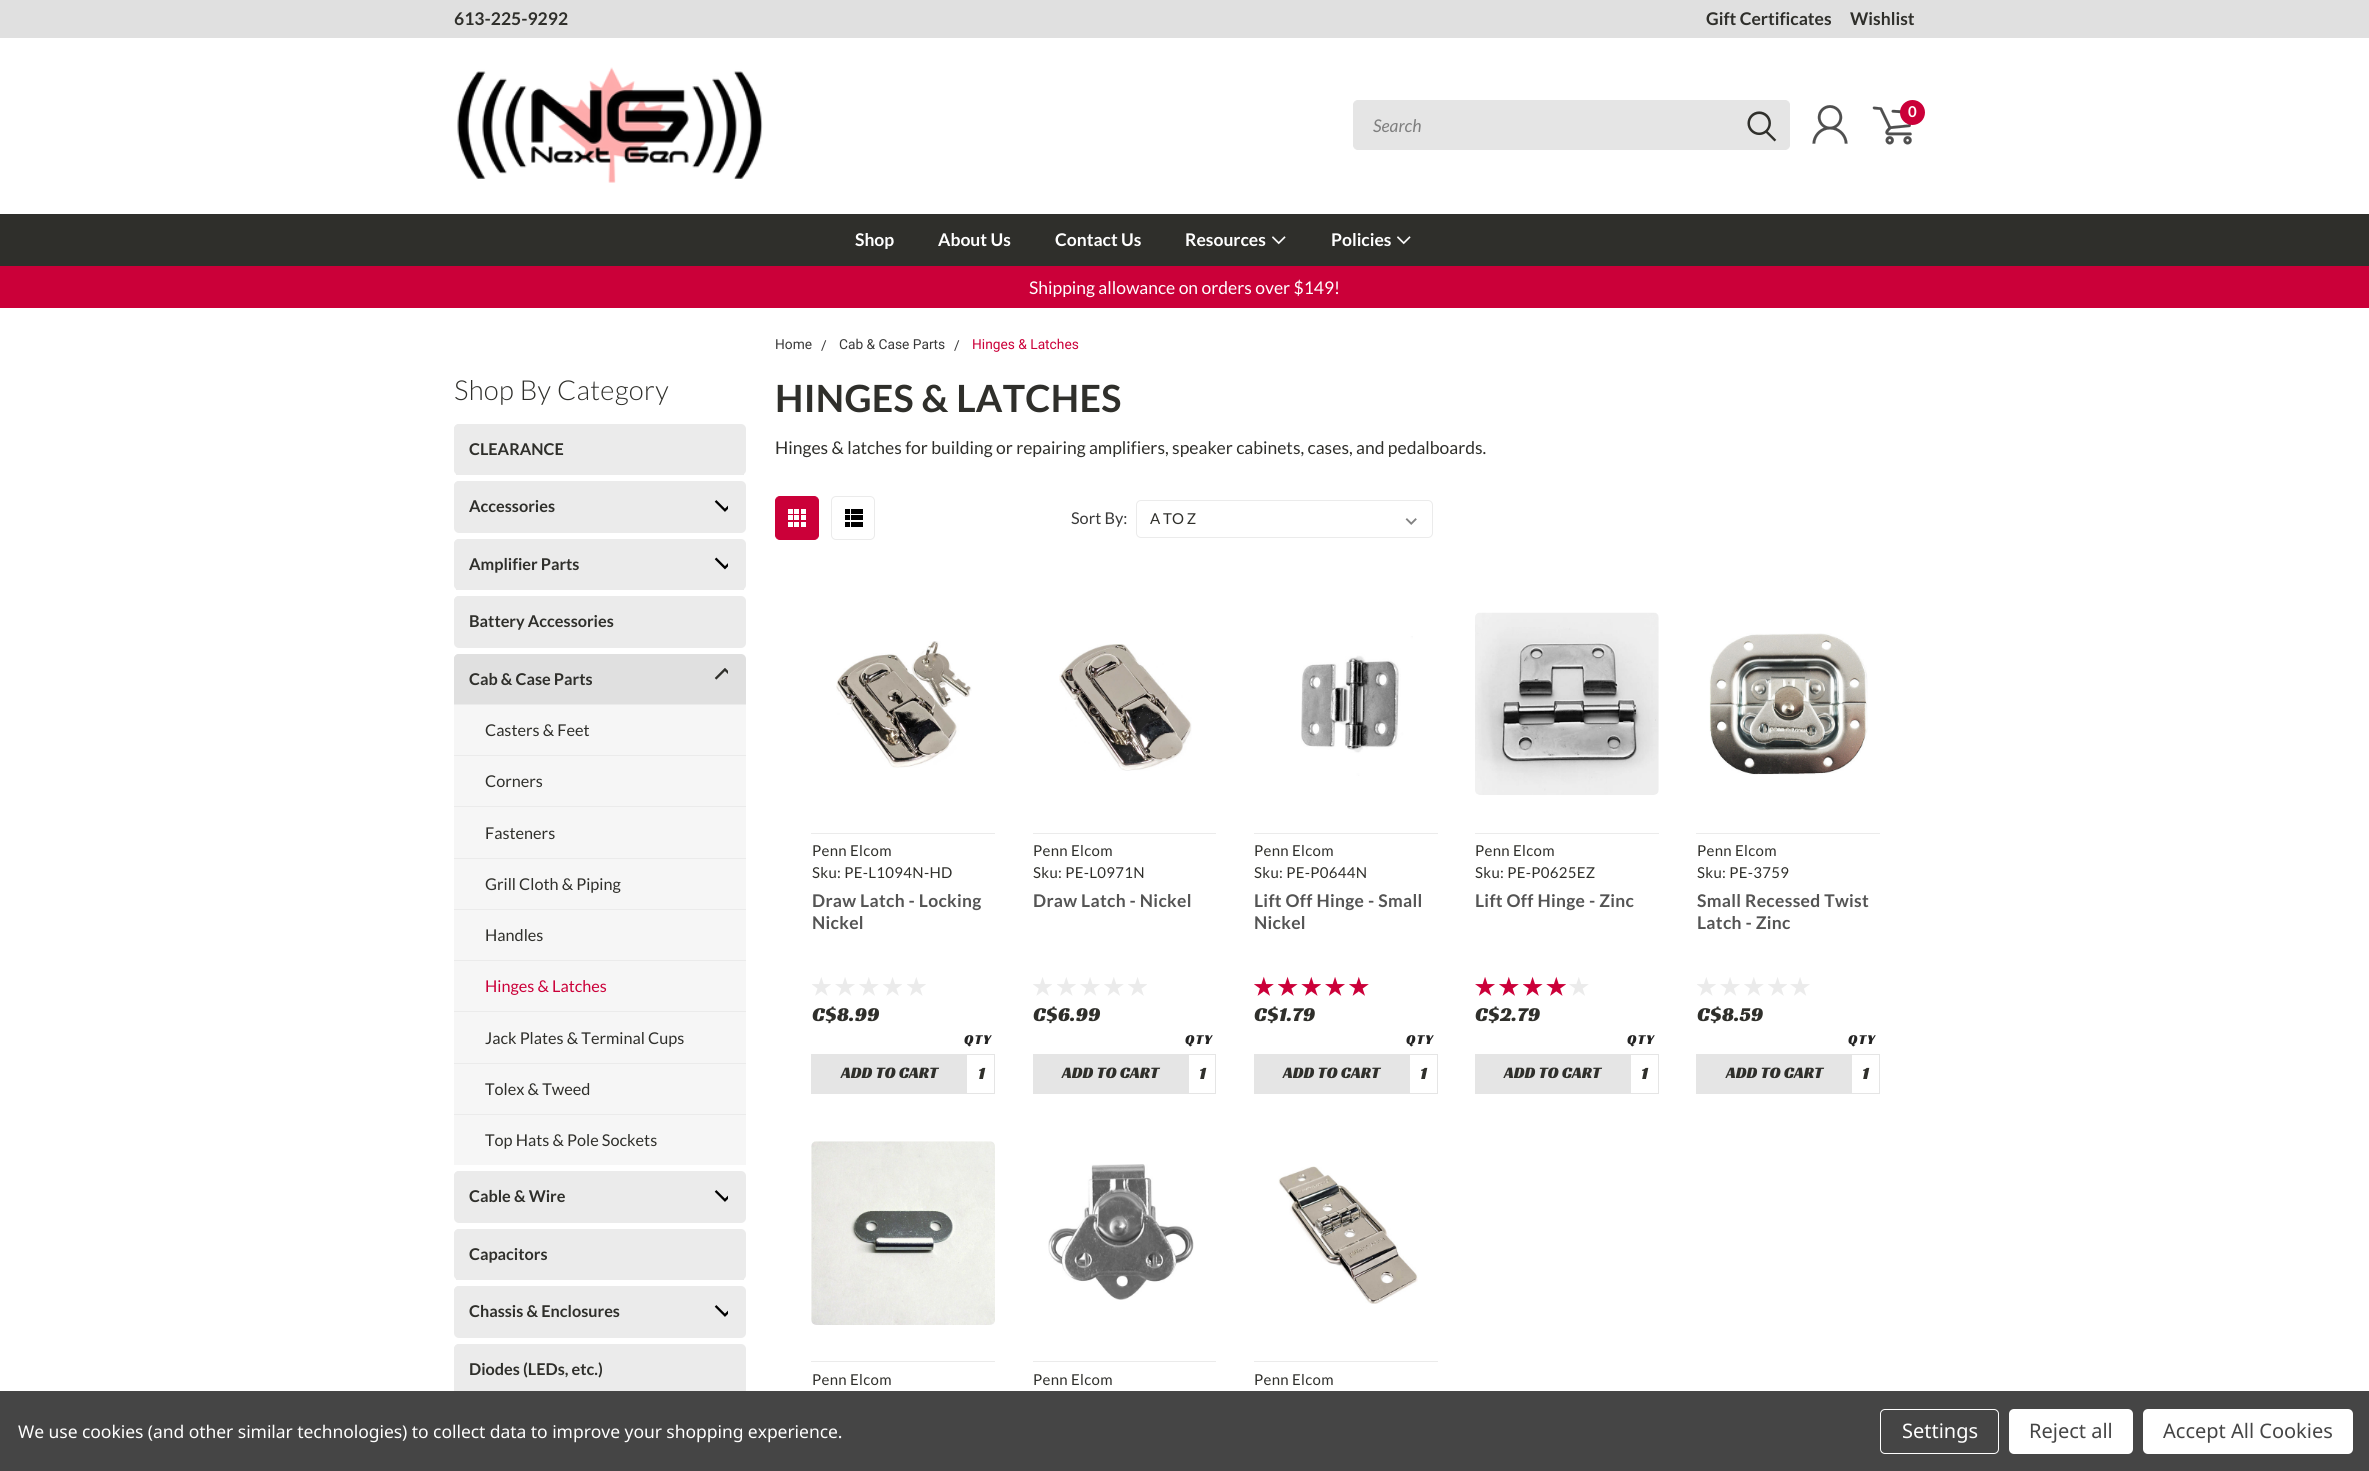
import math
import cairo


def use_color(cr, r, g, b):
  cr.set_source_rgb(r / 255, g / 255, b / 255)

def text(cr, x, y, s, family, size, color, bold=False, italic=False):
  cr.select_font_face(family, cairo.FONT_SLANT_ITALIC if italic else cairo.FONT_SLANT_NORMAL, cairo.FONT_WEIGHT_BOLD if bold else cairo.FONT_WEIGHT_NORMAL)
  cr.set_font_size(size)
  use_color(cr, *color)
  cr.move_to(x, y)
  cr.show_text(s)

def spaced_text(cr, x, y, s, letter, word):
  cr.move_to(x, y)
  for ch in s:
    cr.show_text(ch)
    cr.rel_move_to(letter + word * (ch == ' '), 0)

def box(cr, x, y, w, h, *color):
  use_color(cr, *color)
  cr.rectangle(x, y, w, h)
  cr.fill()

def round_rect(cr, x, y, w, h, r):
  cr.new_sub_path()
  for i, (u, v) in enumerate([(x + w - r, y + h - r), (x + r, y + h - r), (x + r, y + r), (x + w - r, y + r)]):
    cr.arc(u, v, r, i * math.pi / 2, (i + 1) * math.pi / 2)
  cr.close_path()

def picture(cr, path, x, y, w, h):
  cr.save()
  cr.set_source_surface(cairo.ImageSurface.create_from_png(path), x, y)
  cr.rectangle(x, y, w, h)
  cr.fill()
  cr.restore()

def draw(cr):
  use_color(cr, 255, 255, 255)
  cr.paint()
  box(cr, 0, 0, 2369, 38, 224, 224, 224)
  picture(cr, "img_01.png", 457, 67, 306, 116)
  picture(cr, "img_02.png", 1812, 105, 36, 39)
  picture(cr, "img_03.png", 1872, 106, 40, 39)
  use_color(cr, 203, 0, 57)
  cr.arc(1912.5, 112.5, 12.5, 0, 2 * math.pi)
  cr.fill()
  use_color(cr, 229, 229, 229)
  round_rect(cr, 1353.5, 100.5, 436, 49, 4.5)
  cr.fill_preserve()
  cr.set_line_width(1)
  cr.stroke()
  picture(cr, "img_04.png", 1747, 111, 30, 31)
  box(cr, 0, 214, 2369, 52, 47, 47, 43)
  picture(cr, "img_05.png", 1272, 236, 14, 9)
  picture(cr, "img_05.png", 1397, 236, 14, 9)
  box(cr, 0, 266, 2369, 42, 203, 0, 57)
  use_color(cr, 235, 235, 235)
  round_rect(cr, 454, 424, 292, 51, 5)
  cr.fill()
  box(cr, 456, 474, 288, 1, 235, 235, 235)
  round_rect(cr, 454, 424, 249, 50, 5)
  cr.fill()
  round_rect(cr, 454, 481, 292, 52, 5)
  cr.fill()
  round_rect(cr, 454, 481, 249, 50, 5)
  cr.fill()
  picture(cr, "img_06.png", 714, 500, 14, 12)
  round_rect(cr, 454, 539, 292, 51, 5)
  cr.fill()
  box(cr, 456, 589, 288, 1, 235, 235, 235)
  round_rect(cr, 454, 539, 249, 50, 5)
  cr.fill()
  picture(cr, "img_07.png", 714, 557, 14, 13)
  round_rect(cr, 454, 596, 292, 52, 5)
  cr.fill()
  round_rect(cr, 454, 596, 249, 50, 5)
  cr.fill()
  use_color(cr, 224, 224, 224)
  round_rect(cr, 454, 654, 292, 511, 5)
  cr.fill()
  round_rect(cr, 454, 654, 249, 50, 5)
  cr.fill()
  picture(cr, "img_08.png", 714, 668, 14, 12)
  box(cr, 454, 704, 292, 1, 235, 235, 235)
  box(cr, 454, 705, 292, 50, 246, 246, 246)
  box(cr, 454, 755, 292, 1, 235, 235, 235)
  box(cr, 454, 756, 292, 102, 246, 246, 246)
  box(cr, 454, 806, 292, 1, 235, 235, 235)
  box(cr, 454, 858, 292, 1, 235, 235, 235)
  box(cr, 454, 859, 292, 50, 246, 246, 246)
  box(cr, 454, 909, 292, 1, 235, 235, 235)
  box(cr, 454, 910, 292, 50, 246, 246, 246)
  box(cr, 454, 960, 292, 1, 235, 235, 235)
  box(cr, 454, 961, 292, 102, 246, 246, 246)
  box(cr, 454, 1011, 292, 1, 235, 235, 235)
  box(cr, 454, 1063, 292, 1, 235, 235, 235)
  box(cr, 454, 1064, 292, 50, 246, 246, 246)
  box(cr, 454, 1114, 292, 1, 235, 235, 235)
  box(cr, 454, 1115, 292, 50, 246, 246, 246)
  use_color(cr, 235, 235, 235)
  round_rect(cr, 454, 1171, 292, 52, 5)
  cr.fill()
  round_rect(cr, 454, 1171, 249, 50, 5)
  cr.fill()
  picture(cr, "img_06.png", 714, 1190, 14, 12)
  round_rect(cr, 454, 1229, 292, 51, 5)
  cr.fill()
  box(cr, 456, 1279, 288, 1, 235, 235, 235)
  round_rect(cr, 454, 1229, 249, 50, 5)
  cr.fill()
  round_rect(cr, 454, 1286, 292, 52, 5)
  cr.fill()
  round_rect(cr, 454, 1286, 249, 50, 5)
  cr.fill()
  picture(cr, "img_06.png", 714, 1305, 14, 12)
  round_rect(cr, 454, 1344, 292, 51, 5)
  cr.fill()
  round_rect(cr, 454, 1344, 249, 50, 5)
  cr.fill()
  use_color(cr, 203, 0, 57)
  round_rect(cr, 775.5, 496.5, 43, 43, 4.5)
  cr.fill_preserve()
  cr.stroke()
  picture(cr, "img_09.png", 788, 509, 18, 18)
  round_rect(cr, 831.5, 496.5, 43, 43, 4.5)
  use_color(cr, 235, 235, 235)
  cr.stroke()
  picture(cr, "img_10.png", 845, 509, 18, 18)
  picture(cr, "img_11.png", 1405, 518, 12, 7)
  round_rect(cr, 1136.5, 500.5, 296, 37, 4.5)
  cr.stroke()
  picture(cr, "img_12.png", 836, 641, 136, 127)
  box(cr, 811, 833, 184, 1, 235, 235, 235)
  picture(cr, "img_13.png", 812, 977, 19, 19)
  picture(cr, "img_14.png", 835, 977, 20, 19)
  picture(cr, "img_15.png", 859, 977, 20, 19)
  picture(cr, "img_16.png", 883, 977, 19, 19)
  picture(cr, "img_13.png", 907, 977, 19, 19)
  box(cr, 811, 1054, 155, 40, 229, 229, 229)
  cr.rectangle(966.5, 1054.5, 28, 39)
  cr.stroke()
  picture(cr, "img_17.png", 1059, 644, 133, 127)
  box(cr, 1033, 833, 183, 1, 235, 235, 235)
  picture(cr, "img_16.png", 1033, 977, 19, 19)
  picture(cr, "img_13.png", 1057, 977, 19, 19)
  picture(cr, "img_14.png", 1080, 977, 20, 19)
  picture(cr, "img_15.png", 1104, 977, 20, 19)
  picture(cr, "img_16.png", 1128, 977, 19, 19)
  box(cr, 1033, 1054, 155, 40, 229, 229, 229)
  cr.rectangle(1188.5, 1054.5, 27, 39)
  cr.stroke()
  picture(cr, "img_18.png", 1301, 636, 112, 140)
  box(cr, 1254, 833, 184, 1, 235, 235, 235)
  picture(cr, "img_19.png", 1254, 976, 20, 20)
  picture(cr, "img_20.png", 1278, 976, 20, 20)
  picture(cr, "img_21.png", 1301, 976, 20, 20)
  picture(cr, "img_22.png", 1325, 977, 20, 19)
  picture(cr, "img_19.png", 1349, 976, 20, 20)
  box(cr, 1254, 1054, 155, 40, 229, 229, 229)
  cr.rectangle(1409.5, 1054.5, 28, 39)
  cr.stroke()
  picture(cr, "img_23.png", 1475, 612, 184, 183)
  box(cr, 1475, 833, 184, 1, 235, 235, 235)
  picture(cr, "img_22.png", 1475, 977, 20, 19)
  picture(cr, "img_19.png", 1499, 976, 20, 20)
  picture(cr, "img_20.png", 1523, 976, 20, 20)
  picture(cr, "img_21.png", 1546, 976, 20, 20)
  picture(cr, "img_15.png", 1569, 977, 20, 19)
  box(cr, 1475, 1054, 155, 40, 229, 229, 229)
  cr.rectangle(1630.5, 1054.5, 28, 39)
  cr.stroke()
  picture(cr, "img_24.png", 1709, 633, 159, 142)
  box(cr, 1696, 833, 184, 1, 235, 235, 235)
  picture(cr, "img_13.png", 1697, 977, 19, 19)
  picture(cr, "img_14.png", 1720, 977, 20, 19)
  picture(cr, "img_15.png", 1744, 977, 20, 19)
  picture(cr, "img_16.png", 1768, 977, 19, 19)
  picture(cr, "img_14.png", 1790, 977, 20, 19)
  box(cr, 1696, 1054, 155, 40, 229, 229, 229)
  cr.rectangle(1851.5, 1054.5, 28, 39)
  cr.stroke()
  picture(cr, "img_25.png", 811, 1141, 184, 184)
  box(cr, 811, 1361, 184, 1, 235, 235, 235)
  picture(cr, "img_26.png", 1048, 1164, 146, 136)
  box(cr, 1033, 1361, 183, 1, 235, 235, 235)
  picture(cr, "img_27.png", 1278, 1166, 140, 138)
  box(cr, 1254, 1361, 184, 1, 235, 235, 235)
  box(cr, 0, 1391, 2369, 80, 69, 69, 69)
  round_rect(cr, 1880.5, 1409.5, 118, 44, 4.5)
  use_color(cr, 255, 255, 255)
  cr.stroke()
  round_rect(cr, 2009, 1409, 124, 45, 5)
  cr.fill()
  round_rect(cr, 2143, 1409, 210, 45, 5)
  cr.fill()
  text(cr, 454, 25, "613-225-9292", "Lato", 17.5, (47, 47, 43), bold=True)
  text(cr, 1706, 25, "Gift Certificates", "Lato", 17.5, (47, 47, 43), bold=True)
  text(cr, 1850, 25, "Wishlist", "Lato", 17.5, (47, 47, 43), bold=True)
  text(cr, 1908, 117, "0", "Lato", 15, (255, 255, 255), bold=True)
  text(cr, 1373, 132, "Search", "Lato", 17.5, (127, 127, 127), italic=True)
  text(cr, 855, 246, "Shop", "Lato", 17.5, (255, 255, 255), bold=True)
  text(cr, 938, 246, "About Us", "Lato", 17.5, (255, 255, 255), bold=True)
  text(cr, 1055, 246, "Contact Us", "Lato", 17.5, (255, 255, 255), bold=True)
  text(cr, 1185, 246, "Resources", "Lato", 17.5, (255, 255, 255), bold=True)
  text(cr, 1331, 246, "Policies", "Lato", 17.5, (255, 255, 255), bold=True)
  text(cr, 1029, 294, "Shipping allowance on orders over $149!", "Lato", 17.5, (255, 255, 255))
  cr.select_font_face("Lato Light")
  cr.set_font_size(27.5)
  use_color(cr, 47, 47, 43)
  spaced_text(cr, 454, 400, "Shop By Category", 0.3, 0)
  text(cr, 469, 455, "CLEARANCE", "Lato", 16.25, (47, 47, 43), bold=True)
  text(cr, 469, 512, "Accessories", "Lato", 16.25, (47, 47, 43), bold=True)
  text(cr, 469, 570, "Amplifier Parts", "Lato", 16.25, (47, 47, 43), bold=True)
  text(cr, 469, 627, "Battery Accessories", "Lato", 16.25, (47, 47, 43), bold=True)
  text(cr, 469, 685, "Cab & Case Parts", "Lato", 16.25, (47, 47, 43), bold=True)
  text(cr, 485, 736, "Casters & Feet", "Lato", 16.25, (47, 47, 43))
  text(cr, 485, 787, "Corners", "Lato", 16.25, (47, 47, 43))
  text(cr, 485, 839, "Fasteners", "Lato", 16.25, (47, 47, 43))
  text(cr, 485, 890, "Grill Cloth & Piping", "Lato", 16.25, (47, 47, 43))
  text(cr, 485, 941, "Handles", "Lato", 16.25, (47, 47, 43))
  text(cr, 485, 992, "Hinges & Latches", "Lato", 16.25, (203, 0, 57))
  text(cr, 485, 1044, "Jack Plates & Terminal Cups", "Lato", 16.25, (47, 47, 43))
  text(cr, 485, 1095, "Tolex & Tweed", "Lato", 16.25, (47, 47, 43))
  text(cr, 485, 1146, "Top Hats & Pole Sockets", "Lato", 16.25, (47, 47, 43))
  text(cr, 469, 1202, "Cable & Wire", "Lato", 16.25, (47, 47, 43), bold=True)
  text(cr, 469, 1260, "Capacitors", "Lato", 16.25, (47, 47, 43), bold=True)
  text(cr, 469, 1317, "Chassis & Enclosures", "Lato", 16.25, (47, 47, 43), bold=True)
  text(cr, 469, 1375, "Diodes (LEDs, etc.)", "Lato", 16.25, (47, 47, 43), bold=True)
  text(cr, 775, 349, "Home", "Roboto", 13.75, (57, 57, 57))
  text(cr, 821, 350, "/", "Roboto", 13.75, (57, 57, 57))
  text(cr, 839, 349, "Cab & Case Parts", "Roboto", 13.75, (57, 57, 57))
  text(cr, 954, 350, "/", "Roboto", 13.75, (57, 57, 57))
  text(cr, 972, 349, "Hinges & Latches", "Roboto", 13.75, (203, 0, 57))
  cr.select_font_face("Lato", cairo.FONT_SLANT_NORMAL, cairo.FONT_WEIGHT_BOLD)
  cr.set_font_size(37.5)
  use_color(cr, 47, 47, 43)
  spaced_text(cr, 775, 412, "HINGES & LATCHES", 0.3, 0)
  text(cr, 775, 454, "Hinges & latches for building or repairing amplifiers, speaker cabinets, cases, and pedalboards.", "Lato", 17.5, (47, 47, 43))
  text(cr, 1071, 524, "Sort By:", "Lato", 16.25, (57, 57, 57))
  text(cr, 1150, 524, "A TO Z", "Lato", 15, (47, 47, 43))
  spaced_text(cr, 812, 856, "Penn Elcom", 0.3, 0)
  spaced_text(cr, 812, 878, "Sku: PE-L1094N-HD", 0.3, 0)
  cr.select_font_face("Lato", cairo.FONT_SLANT_NORMAL, cairo.FONT_WEIGHT_BOLD)
  cr.set_font_size(17.5)
  use_color(cr, 84, 84, 84)
  spaced_text(cr, 812, 907, "Draw Latch - Locking", 0.3, 0)
  spaced_text(cr, 812, 929, "Nickel", 0.3, 0)
  text(cr, 812, 1021, "C$8.99", "Racing Sans One", 20, (47, 47, 43))
  cr.set_font_size(13.75)
  use_color(cr, 35, 35, 35)
  spaced_text(cr, 964, 1044, "QTY", 1, 0)
  text(cr, 841, 1078, "ADD TO CART", "Racing Sans One", 16.25, (47, 47, 43))
  text(cr, 978, 1079, "1", "Racing Sans One", 17.5, (47, 47, 43))
  cr.select_font_face("Lato")
  cr.set_font_size(15)
  spaced_text(cr, 1033, 856, "Penn Elcom", 0.3, 0)
  spaced_text(cr, 1033, 878, "Sku: PE-L0971N", 0.3, 0)
  cr.select_font_face("Lato", cairo.FONT_SLANT_NORMAL, cairo.FONT_WEIGHT_BOLD)
  cr.set_font_size(17.5)
  use_color(cr, 84, 84, 84)
  spaced_text(cr, 1033, 907, "Draw Latch - Nickel", 0.3, 0)
  text(cr, 1033, 1021, "C$6.99", "Racing Sans One", 20, (47, 47, 43))
  cr.set_font_size(13.75)
  use_color(cr, 35, 35, 35)
  spaced_text(cr, 1185, 1044, "QTY", 1, 0)
  text(cr, 1062, 1078, "ADD TO CART", "Racing Sans One", 16.25, (47, 47, 43))
  text(cr, 1199, 1079, "1", "Racing Sans One", 17.5, (47, 47, 43))
  cr.select_font_face("Lato")
  cr.set_font_size(15)
  spaced_text(cr, 1254, 856, "Penn Elcom", 0.3, 0)
  spaced_text(cr, 1254, 878, "Sku: PE-P0644N", 0.3, 0)
  cr.select_font_face("Lato", cairo.FONT_SLANT_NORMAL, cairo.FONT_WEIGHT_BOLD)
  cr.set_font_size(17.5)
  use_color(cr, 84, 84, 84)
  spaced_text(cr, 1254, 907, "Lift Off Hinge - Small", 0.3, 0)
  spaced_text(cr, 1254, 929, "Nickel", 0.3, 0)
  text(cr, 1254, 1021, "C$1.79", "Racing Sans One", 20, (47, 47, 43))
  cr.set_font_size(13.75)
  use_color(cr, 35, 35, 35)
  spaced_text(cr, 1406, 1044, "QTY", 1, 0)
  text(cr, 1283, 1078, "ADD TO CART", "Racing Sans One", 16.25, (47, 47, 43))
  text(cr, 1420, 1079, "1", "Racing Sans One", 17.5, (47, 47, 43))
  cr.select_font_face("Lato")
  cr.set_font_size(15)
  spaced_text(cr, 1475, 856, "Penn Elcom", 0.3, 0)
  spaced_text(cr, 1475, 878, "Sku: PE-P0625EZ", 0.3, 0)
  cr.select_font_face("Lato", cairo.FONT_SLANT_NORMAL, cairo.FONT_WEIGHT_BOLD)
  cr.set_font_size(17.5)
  use_color(cr, 84, 84, 84)
  spaced_text(cr, 1475, 907, "Lift Off Hinge - Zinc", 0.3, 0)
  text(cr, 1475, 1021, "C$2.79", "Racing Sans One", 20, (47, 47, 43))
  cr.set_font_size(13.75)
  use_color(cr, 35, 35, 35)
  spaced_text(cr, 1627, 1044, "QTY", 1, 0)
  text(cr, 1504, 1078, "ADD TO CART", "Racing Sans One", 16.25, (47, 47, 43))
  text(cr, 1641, 1079, "1", "Racing Sans One", 17.5, (47, 47, 43))
  cr.select_font_face("Lato")
  cr.set_font_size(15)
  spaced_text(cr, 1697, 856, "Penn Elcom", 0.3, 0)
  spaced_text(cr, 1697, 878, "Sku: PE-3759", 0.3, 0)
  cr.select_font_face("Lato", cairo.FONT_SLANT_NORMAL, cairo.FONT_WEIGHT_BOLD)
  cr.set_font_size(17.5)
  use_color(cr, 84, 84, 84)
  spaced_text(cr, 1697, 907, "Small Recessed Twist", 0.3, 0)
  spaced_text(cr, 1697, 929, "Latch - Zinc", 0.3, 0)
  text(cr, 1697, 1021, "C$8.59", "Racing Sans One", 20, (47, 47, 43))
  cr.set_font_size(13.75)
  use_color(cr, 35, 35, 35)
  spaced_text(cr, 1848, 1044, "QTY", 1, 0)
  text(cr, 1726, 1078, "ADD TO CART", "Racing Sans One", 16.25, (47, 47, 43))
  text(cr, 1862, 1079, "1", "Racing Sans One", 17.5, (47, 47, 43))
  cr.select_font_face("Lato")
  cr.set_font_size(15)
  spaced_text(cr, 812, 1385, "Penn Elcom", 0.3, 0)
  spaced_text(cr, 1033, 1385, "Penn Elcom", 0.3, 0)
  spaced_text(cr, 1254, 1385, "Penn Elcom", 0.3, 0)
  cr.select_font_face("Noto Sans")
  cr.set_font_size(17.5)
  use_color(cr, 255, 255, 255)
  spaced_text(cr, 18, 1438, "We use cookies (and other similar technologies) to collect data to improve your shopping experience.", -0.05, 0)
  text(cr, 1902, 1438, "Settings", "Noto Sans", 20, (255, 255, 255))
  text(cr, 2029, 1438, "Reject all", "Noto Sans", 20, (69, 69, 69))
  text(cr, 2163, 1438, "Accept All Cookies", "Noto Sans", 20, (69, 69, 69))


surface = cairo.ImageSurface(cairo.FORMAT_RGB24, 2369, 1471)
cr = cairo.Context(surface)
options = cairo.FontOptions()
options.set_hint_metrics(cairo.HINT_METRICS_OFF)
options.set_hint_style(cairo.HINT_STYLE_NONE)
cr.set_font_options(options)
cr.set_miter_limit(4)
draw(cr)
surface.write_to_png("out.png")
